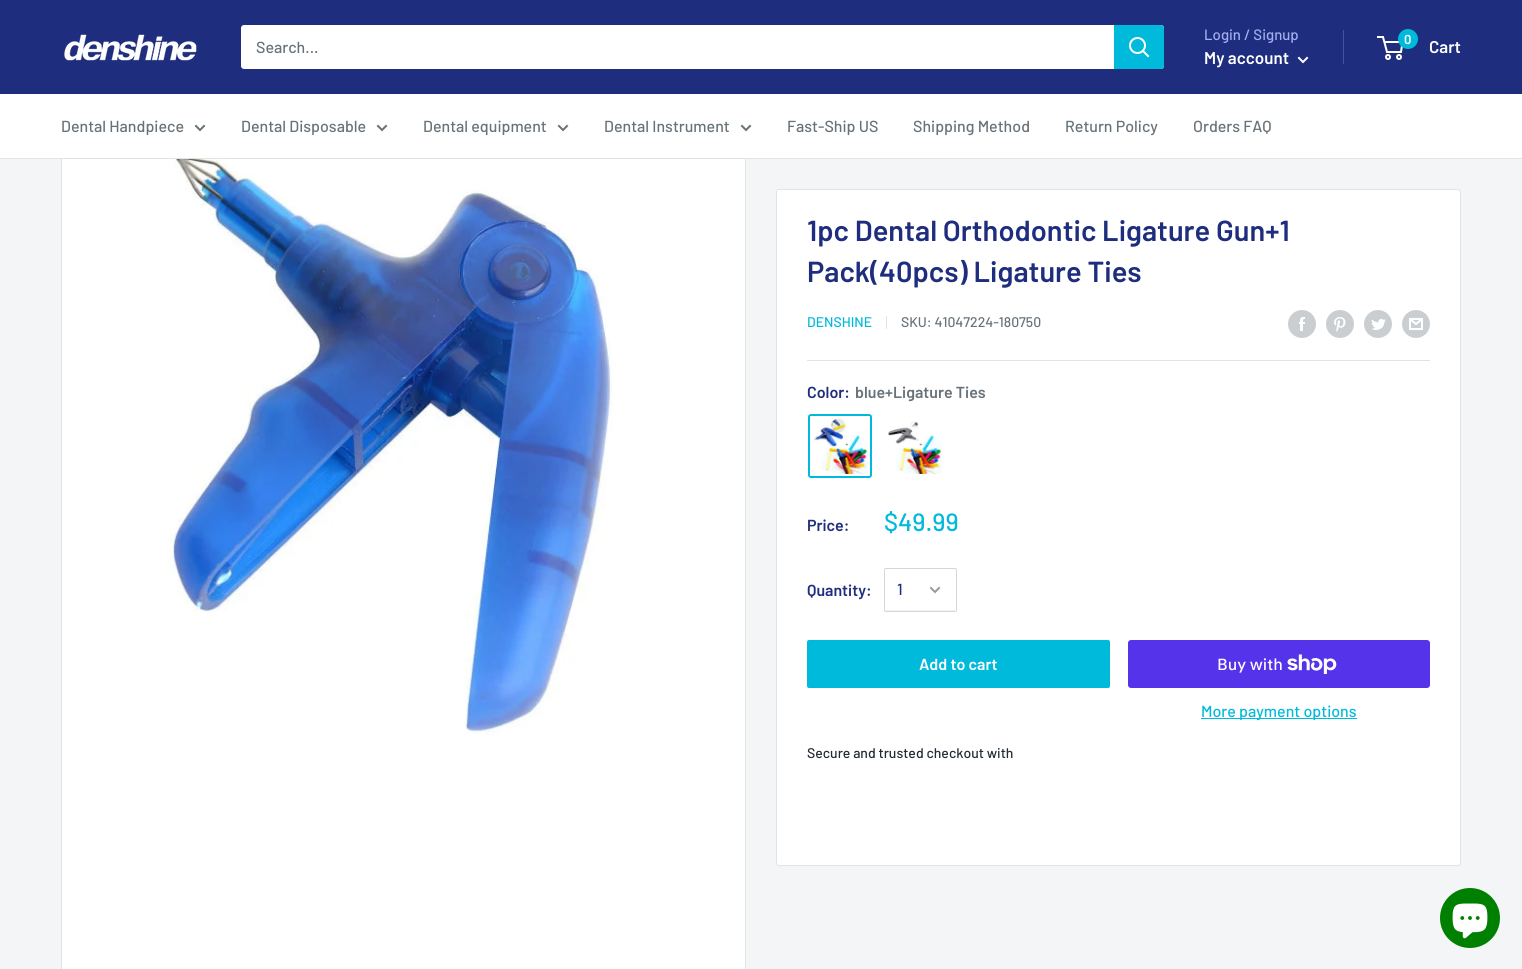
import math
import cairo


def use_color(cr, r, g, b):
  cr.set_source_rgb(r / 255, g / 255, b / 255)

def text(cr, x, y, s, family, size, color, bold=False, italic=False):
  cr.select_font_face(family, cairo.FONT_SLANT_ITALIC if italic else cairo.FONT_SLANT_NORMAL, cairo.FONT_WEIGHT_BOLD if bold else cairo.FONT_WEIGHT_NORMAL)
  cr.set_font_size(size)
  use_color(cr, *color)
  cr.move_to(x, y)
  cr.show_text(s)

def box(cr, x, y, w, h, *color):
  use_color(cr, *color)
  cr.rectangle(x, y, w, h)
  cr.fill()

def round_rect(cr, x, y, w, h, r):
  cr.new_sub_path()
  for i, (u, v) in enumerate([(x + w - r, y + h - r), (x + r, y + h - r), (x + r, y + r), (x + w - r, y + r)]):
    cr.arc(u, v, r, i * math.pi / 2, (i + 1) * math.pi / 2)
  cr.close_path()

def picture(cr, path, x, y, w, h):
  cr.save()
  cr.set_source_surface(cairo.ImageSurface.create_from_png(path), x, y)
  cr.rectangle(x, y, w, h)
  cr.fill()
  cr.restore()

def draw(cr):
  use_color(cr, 243, 245, 246)
  cr.paint()
  box(cr, 62, 159, 683, 810, 255, 255, 255)
  cr.rectangle(61.5, -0.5, 684, 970)
  use_color(cr, 225, 227, 228)
  cr.set_line_width(1)
  cr.stroke()
  box(cr, 0, 0, 1522, 94, 30, 45, 125)
  picture(cr, "img_01.png", 64, 34, 133, 27)
  use_color(cr, 255, 255, 255)
  round_rect(cr, 241, 25, 923, 44, 3)
  cr.fill()
  use_color(cr, 0, 186, 219)
  cr.new_path()
  cr.move_to(1114, 25)
  cr.line_to(1161, 25)
  cr.curve_to(1162.5, 25, 1164, 26.5, 1164, 28)
  cr.line_to(1164, 66)
  cr.curve_to(1164, 67.5, 1162.5, 69, 1161, 69)
  cr.line_to(1114, 69)
  cr.close_path()
  cr.fill()
  cr.new_path()
  cr.move_to(1148, 56)
  cr.line_to(1143, 51)
  use_color(cr, 255, 255, 255)
  cr.set_line_width(2)
  cr.set_line_cap(cairo.LINE_CAP_SQUARE)
  cr.stroke()
  cr.arc(1137.5, 45.5, 7.5, 0, 2 * math.pi)
  cr.set_line_cap(cairo.LINE_CAP_BUTT)
  cr.stroke()
  box(cr, 1343, 30, 1, 34, 70, 84, 159)
  cr.new_path()
  cr.move_to(1307, 58)
  cr.line_to(1303, 62)
  cr.line_to(1299, 58)
  use_color(cr, 255, 255, 255)
  cr.set_line_cap(cairo.LINE_CAP_SQUARE)
  cr.stroke()
  cr.arc(1388, 57, 2, 0, 2 * math.pi)
  cr.set_line_cap(cairo.LINE_CAP_BUTT)
  cr.stroke()
  cr.arc(1399, 57, 2, 0, 2 * math.pi)
  cr.stroke()
  cr.new_path()
  cr.move_to(1384.5, 42)
  cr.line_to(1402.5, 42)
  cr.line_to(1401, 52)
  cr.line_to(1387, 52)
  cr.line_to(1383, 37)
  cr.line_to(1377, 37)
  cr.stroke()
  use_color(cr, 0, 186, 219)
  cr.arc(1408, 39, 10, 0, 2 * math.pi)
  cr.fill()
  box(cr, 0, 94, 1522, 64, 255, 255, 255)
  box(cr, 0, 158, 1522, 1, 225, 227, 228)
  cr.new_path()
  cr.move_to(204, 126)
  cr.line_to(200, 130)
  cr.line_to(196, 126)
  use_color(cr, 103, 114, 121)
  cr.set_line_cap(cairo.LINE_CAP_SQUARE)
  cr.stroke()
  cr.new_path()
  cr.move_to(386, 126)
  cr.line_to(382, 130)
  cr.line_to(378, 126)
  cr.stroke()
  cr.new_path()
  cr.move_to(567, 126)
  cr.line_to(563, 130)
  cr.line_to(559, 126)
  cr.stroke()
  cr.new_path()
  cr.move_to(750, 126)
  cr.line_to(746, 130)
  cr.line_to(742, 126)
  cr.stroke()
  picture(cr, "img_02.png", 170, 159, 443, 576)
  use_color(cr, 255, 255, 255)
  round_rect(cr, 776.5, 189.5, 684, 676, 2.5)
  cr.fill_preserve()
  use_color(cr, 225, 227, 228)
  cr.set_line_width(1)
  cr.set_line_cap(cairo.LINE_CAP_BUTT)
  cr.stroke()
  box(cr, 886, 316, 1, 13, 225, 227, 228)
  picture(cr, "img_03.png", 1288, 310, 28, 28)
  picture(cr, "img_04.png", 1326, 310, 28, 28)
  picture(cr, "img_05.png", 1364, 310, 28, 28)
  picture(cr, "img_06.png", 1402, 310, 28, 28)
  box(cr, 807, 360, 623, 1, 225, 227, 228)
  round_rect(cr, 809, 415, 62, 62, 2)
  use_color(cr, 0, 186, 219)
  cr.set_line_width(2)
  cr.stroke()
  picture(cr, "img_07.png", 814, 418, 54, 56)
  picture(cr, "img_08.png", 888, 421, 54, 53)
  use_color(cr, 242, 243, 243)
  cr.new_path()
  cr.move_to(885, 609)
  cr.curve_to(885, 610, 885, 611, 886, 611)
  cr.line_to(955, 611)
  cr.line_to(956, 609)
  cr.line_to(955, 610)
  cr.line_to(898, 610)
  cr.line_to(886, 610)
  cr.close_path()
  cr.fill()
  round_rect(cr, 884.5, 568.5, 72, 43, 1.5)
  use_color(cr, 212, 214, 216)
  cr.set_line_width(1)
  cr.stroke()
  cr.new_path()
  cr.move_to(939, 588)
  cr.line_to(935, 592)
  cr.line_to(931, 588)
  use_color(cr, 149, 156, 161)
  cr.set_line_width(2)
  cr.set_line_cap(cairo.LINE_CAP_SQUARE)
  cr.stroke()
  use_color(cr, 0, 186, 219)
  round_rect(cr, 807, 640, 303, 48, 2)
  cr.fill()
  use_color(cr, 84, 51, 235)
  round_rect(cr, 1128, 640, 302, 48, 3)
  cr.fill()
  picture(cr, "img_09.png", 1287, 654, 50, 20)
  box(cr, 1201, 718, 156, 1, 0, 186, 219)
  use_color(cr, 0, 128, 0)
  cr.arc(1470, 918, 30, 0, 2 * math.pi)
  cr.fill()
  picture(cr, "img_10.png", 1452, 903, 36, 36)
  text(cr, 256, 53, "Search...", "Barlow Medium", 16, (103, 114, 121))
  text(cr, 1204, 40, "Login / Signup", "Barlow Medium", 15, (163, 175, 239))
  text(cr, 1204, 64, "My account", "Barlow SemiBold", 17, (255, 255, 255))
  text(cr, 1404, 44, "0", "Barlow SemiBold", 13, (255, 255, 255))
  text(cr, 1429, 53, "Cart", "Barlow SemiBold", 17, (255, 255, 255))
  text(cr, 61, 132, "Dental Handpiece", "Barlow Medium", 16, (103, 114, 121))
  text(cr, 241, 132, "Dental Disposable", "Barlow Medium", 16, (103, 114, 121))
  text(cr, 423, 132, "Dental equipment", "Barlow Medium", 16, (103, 114, 121))
  text(cr, 604, 132, "Dental Instrument", "Barlow Medium", 16, (103, 114, 121))
  text(cr, 787, 132, "Fast-Ship US", "Barlow Medium", 16, (103, 114, 121))
  text(cr, 913, 132, "Shipping Method", "Barlow Medium", 16, (103, 114, 121))
  text(cr, 1065, 132, "Return Policy", "Barlow Medium", 16, (103, 114, 121))
  text(cr, 1193, 132, "Orders FAQ", "Barlow Medium", 16, (103, 114, 121))
  text(cr, 807, 241, "1pc Dental Orthodontic Ligature Gun+1", "Barlow SemiBold", 29, (30, 45, 125))
  text(cr, 807, 282, "Pack(40pcs) Ligature Ties", "Barlow SemiBold", 29, (30, 45, 125))
  text(cr, 807, 327, "DENSHINE", "Barlow Medium", 14, (0, 186, 219))
  text(cr, 901, 327, "SKU: 41047224-180750", "Barlow Medium", 14, (103, 114, 121))
  text(cr, 807, 398, "Color:", "Barlow SemiBold", 16, (30, 45, 125))
  text(cr, 855, 398, "blue+Ligature Ties", "Barlow SemiBold", 16, (103, 114, 121))
  text(cr, 807, 531, "Price:", "Barlow SemiBold", 16, (30, 45, 125))
  text(cr, 884, 531, "$49.99", "Barlow Medium", 25, (0, 186, 219))
  text(cr, 807, 596, "Quantity:", "Barlow SemiBold", 16, (30, 45, 125))
  text(cr, 897, 595, "1", "Barlow Medium", 16, (30, 45, 125))
  text(cr, 919, 670, "Add to cart", "Barlow SemiBold", 16, (255, 255, 255))
  text(cr, 1217, 670, "Buy with", "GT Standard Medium", 16, (255, 255, 255))
  text(cr, 1201, 717, "More payment options", "Barlow Medium", 16, (0, 186, 219))
  text(cr, 807, 758, "Secure and trusted checkout with", "Barlow Medium", 14, (33, 43, 53))


surface = cairo.ImageSurface(cairo.FORMAT_RGB24, 1522, 969)
cr = cairo.Context(surface)
options = cairo.FontOptions()
options.set_hint_metrics(cairo.HINT_METRICS_OFF)
options.set_hint_style(cairo.HINT_STYLE_NONE)
cr.set_font_options(options)
cr.set_miter_limit(4)
draw(cr)
surface.write_to_png("out.png")
